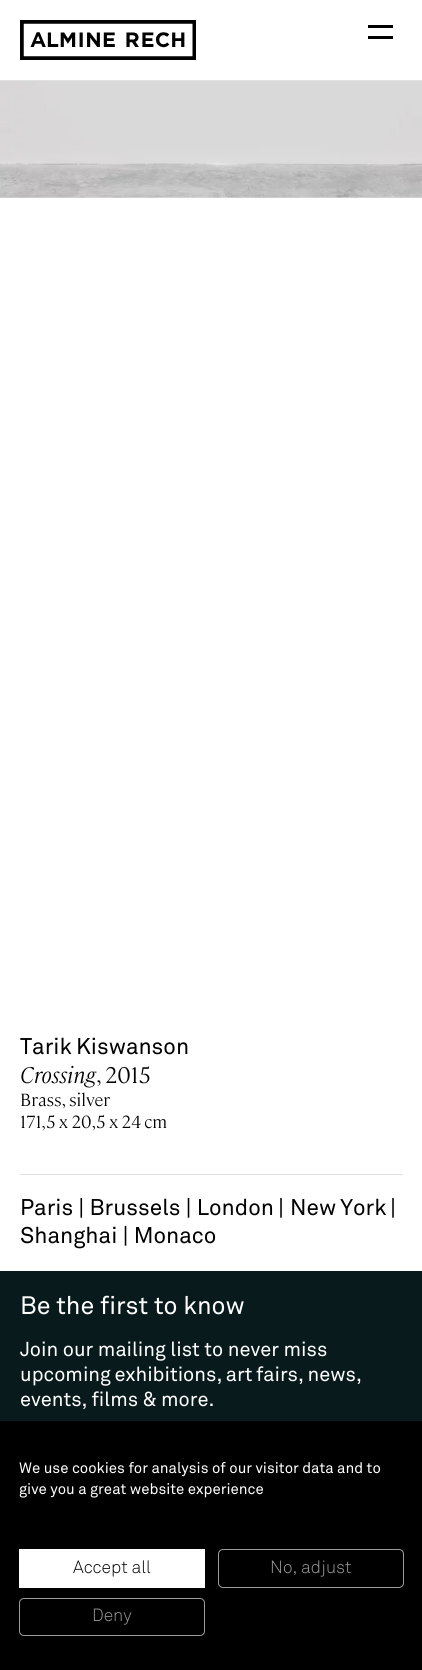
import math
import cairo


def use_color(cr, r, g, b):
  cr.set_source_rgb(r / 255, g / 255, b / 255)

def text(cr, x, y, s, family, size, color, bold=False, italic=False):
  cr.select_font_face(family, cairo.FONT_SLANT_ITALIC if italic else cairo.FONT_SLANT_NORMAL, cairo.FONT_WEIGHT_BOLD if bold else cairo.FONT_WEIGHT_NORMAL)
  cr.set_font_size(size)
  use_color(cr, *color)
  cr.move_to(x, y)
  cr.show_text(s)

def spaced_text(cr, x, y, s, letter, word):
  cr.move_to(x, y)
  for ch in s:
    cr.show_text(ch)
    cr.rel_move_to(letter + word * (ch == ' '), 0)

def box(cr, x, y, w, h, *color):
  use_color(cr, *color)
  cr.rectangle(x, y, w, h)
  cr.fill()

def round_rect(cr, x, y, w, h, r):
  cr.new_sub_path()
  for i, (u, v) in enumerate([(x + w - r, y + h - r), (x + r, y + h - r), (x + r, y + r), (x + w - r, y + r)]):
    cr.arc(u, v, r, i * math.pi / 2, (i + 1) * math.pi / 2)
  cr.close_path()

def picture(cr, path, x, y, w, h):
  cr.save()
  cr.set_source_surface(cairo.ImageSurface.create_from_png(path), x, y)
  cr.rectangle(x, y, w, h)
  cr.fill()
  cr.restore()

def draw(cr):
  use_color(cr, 255, 255, 255)
  cr.paint()
  cr.rectangle(-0.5, -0.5, 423, 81)
  use_color(cr, 225, 225, 225)
  cr.set_line_width(1)
  cr.stroke()
  picture(cr, "img_01.png", 20, 20, 176, 40)
  box(cr, 368, 25, 25, 3, 0, 0, 0)
  box(cr, 368, 36, 25, 3, 0, 0, 0)
  picture(cr, "img_02.png", 0, 81, 422, 117)
  box(cr, 20, 1174, 383, 1, 225, 225, 225)
  box(cr, 0, 1271, 422, 150, 9, 26, 29)
  box(cr, 0, 1421, 422, 249, 0, 0, 0)
  box(cr, 19, 1549, 186, 39, 255, 255, 255)
  round_rect(cr, 218.5, 1549.5, 185, 38, 4.5)
  use_color(cr, 155, 155, 155)
  cr.stroke()
  round_rect(cr, 19.5, 1598.5, 185, 37, 4.5)
  cr.stroke()
  cr.select_font_face("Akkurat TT")
  cr.set_font_size(22.5)
  use_color(cr, 0, 0, 0)
  spaced_text(cr, 20, 1054, "Tarik Kiswanson", 0, -1)
  text(cr, 20, 1083, "Crossing", "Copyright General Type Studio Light", 22.5, (0, 0, 0), italic=True)
  text(cr, 96, 1083, ",", "Copyright General Type Studio Light", 22.5, (0, 0, 0))
  text(cr, 105, 1083, "2015", "Copyright General Type Studio Light", 22.5, (0, 0, 0))
  cr.set_font_size(17.5)
  spaced_text(cr, 20, 1106, "Brass, silver", 0, -1)
  spaced_text(cr, 20, 1128, "171,5 x 20,5 x 24 cm", 0, -0.5)
  text(cr, 20, 1215, "Paris | Brussels | London", "Akkurat TT", 22.5, (0, 0, 0))
  text(cr, 278, 1215, "|", "Akkurat TT", 22.5, (0, 0, 0))
  spaced_text(cr, 290, 1215, "New York", 0, -1)
  text(cr, 390, 1215, "|", "Akkurat TT", 22.5, (0, 0, 0))
  text(cr, 20, 1243, "Shanghai | Monaco", "Akkurat TT", 22.5, (0, 0, 0))
  text(cr, 20, 1314, "Be the first to know", "Akkurat TT", 25, (255, 255, 255))
  text(cr, 20, 1356, "Join our mailing list to never miss", "Akkurat TT", 20, (255, 255, 255))
  spaced_text(cr, 20, 1381, "upcoming exhibitions, art fairs, news,", 0, -1)
  spaced_text(cr, 20, 1406, "events, films & more.", 0, -0.5)
  text(cr, 19, 1473, "We use cookies for analysis of our visitor data and to", "Akkurat TT", 15, (255, 255, 255))
  text(cr, 19, 1494, "give you a great website experience", "Akkurat TT", 15, (255, 255, 255))
  text(cr, 73, 1573, "Accept all", "Akkurat TT Light", 17.5, (0, 0, 0))
  text(cr, 270, 1573, "No, adjust", "Akkurat TT Light", 17.5, (155, 155, 155))
  text(cr, 92, 1621, "Deny", "Akkurat TT Light", 17.5, (155, 155, 155))


surface = cairo.ImageSurface(cairo.FORMAT_RGB24, 422, 1670)
cr = cairo.Context(surface)
options = cairo.FontOptions()
options.set_hint_metrics(cairo.HINT_METRICS_OFF)
options.set_hint_style(cairo.HINT_STYLE_NONE)
cr.set_font_options(options)
cr.set_miter_limit(4)
draw(cr)
surface.write_to_png("out.png")
